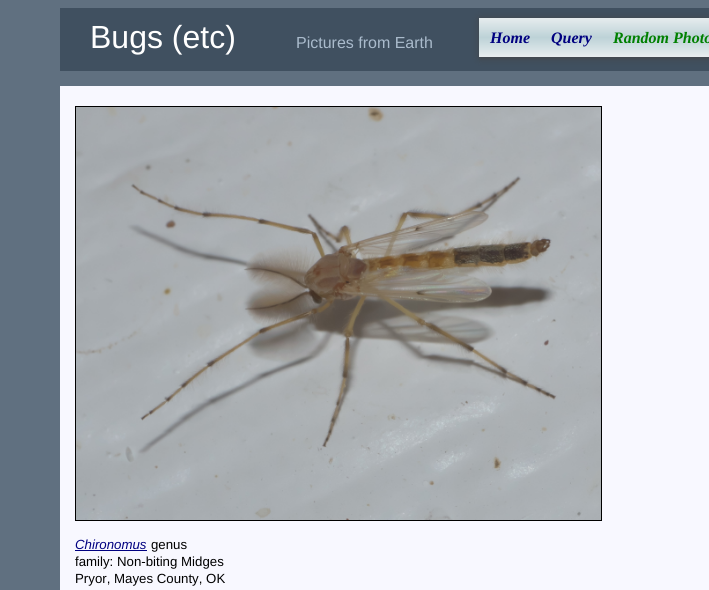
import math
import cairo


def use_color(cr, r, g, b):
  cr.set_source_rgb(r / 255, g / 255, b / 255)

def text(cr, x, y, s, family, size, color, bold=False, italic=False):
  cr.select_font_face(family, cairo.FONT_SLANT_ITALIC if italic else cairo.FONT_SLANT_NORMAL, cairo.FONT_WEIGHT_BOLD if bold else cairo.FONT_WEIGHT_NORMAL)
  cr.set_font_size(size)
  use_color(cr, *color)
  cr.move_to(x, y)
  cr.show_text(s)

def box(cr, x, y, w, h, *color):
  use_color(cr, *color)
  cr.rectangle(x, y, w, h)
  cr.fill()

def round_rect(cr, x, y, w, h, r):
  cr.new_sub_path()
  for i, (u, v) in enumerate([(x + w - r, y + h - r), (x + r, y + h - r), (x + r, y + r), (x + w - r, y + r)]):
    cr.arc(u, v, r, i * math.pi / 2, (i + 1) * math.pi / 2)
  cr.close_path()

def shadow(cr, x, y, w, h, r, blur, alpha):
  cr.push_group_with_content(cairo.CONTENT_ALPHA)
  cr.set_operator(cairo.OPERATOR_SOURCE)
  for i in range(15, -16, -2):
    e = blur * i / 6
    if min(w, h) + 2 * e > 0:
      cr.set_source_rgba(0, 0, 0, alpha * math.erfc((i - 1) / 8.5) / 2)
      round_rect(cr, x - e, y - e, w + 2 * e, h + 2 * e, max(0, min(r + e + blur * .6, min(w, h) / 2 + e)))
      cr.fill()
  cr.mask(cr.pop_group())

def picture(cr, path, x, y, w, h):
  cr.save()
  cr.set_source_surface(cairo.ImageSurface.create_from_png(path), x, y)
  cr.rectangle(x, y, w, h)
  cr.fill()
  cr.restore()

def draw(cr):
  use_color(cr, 96, 112, 128)
  cr.paint()
  box(cr, 60, 8, 649, 63, 64, 80, 96)
  use_color(cr, 68, 68, 68)
  shadow(cr, 480, 19, 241, 39, 0, 4, 1)
  gradient = cairo.LinearGradient(636, 18, 636, 57)
  gradient.add_color_stop_rgba(0, 0.902, 0.925, 0.933, 1)
  gradient.add_color_stop_rgba(0.5, 0.741, 0.824, 0.843, 1)
  gradient.add_color_stop_rgba(1, 0.91, 0.933, 0.941, 1)
  cr.set_source(gradient)
  cr.rectangle(479, 18, 230, 39)
  cr.fill()
  box(cr, 60, 86, 649, 504, 248, 248, 255)
  cr.rectangle(75.5, 106.5, 526, 414)
  use_color(cr, 0, 0, 0)
  cr.set_line_width(1)
  cr.stroke()
  picture(cr, "img_01.png", 76, 107, 525, 413)
  box(cr, 75, 550, 72, 1, 0, 0, 128)
  text(cr, 90, 48, "Bugs (etc)", "Liberation Sans", 32, (255, 255, 255))
  text(cr, 296, 48, "Pictures from Earth", "Liberation Sans", 16, (170, 187, 204))
  text(cr, 490, 43, "Home", "Liberation Serif", 16, (0, 0, 128), bold=True, italic=True)
  text(cr, 551, 43, "Query", "Liberation Serif", 16, (0, 0, 128), bold=True, italic=True)
  text(cr, 613, 43, "Random Photo", "Liberation Serif", 16, (0, 128, 0), bold=True, italic=True)
  text(cr, 75, 549, "Chironomus", "Liberation Sans", 13.25, (0, 0, 128), italic=True)
  text(cr, 151, 549, "genus", "Liberation Sans", 13.25, (0, 0, 0))
  text(cr, 75, 566, "family: Non-biting Midges", "Liberation Sans", 13.25, (0, 0, 0))
  text(cr, 75, 583, "Pryor, Mayes County, OK", "Liberation Sans", 13.25, (0, 0, 0))


surface = cairo.ImageSurface(cairo.FORMAT_RGB24, 709, 590)
cr = cairo.Context(surface)
options = cairo.FontOptions()
options.set_hint_metrics(cairo.HINT_METRICS_OFF)
options.set_hint_style(cairo.HINT_STYLE_NONE)
cr.set_font_options(options)
cr.set_miter_limit(4)
draw(cr)
surface.write_to_png("out.png")
